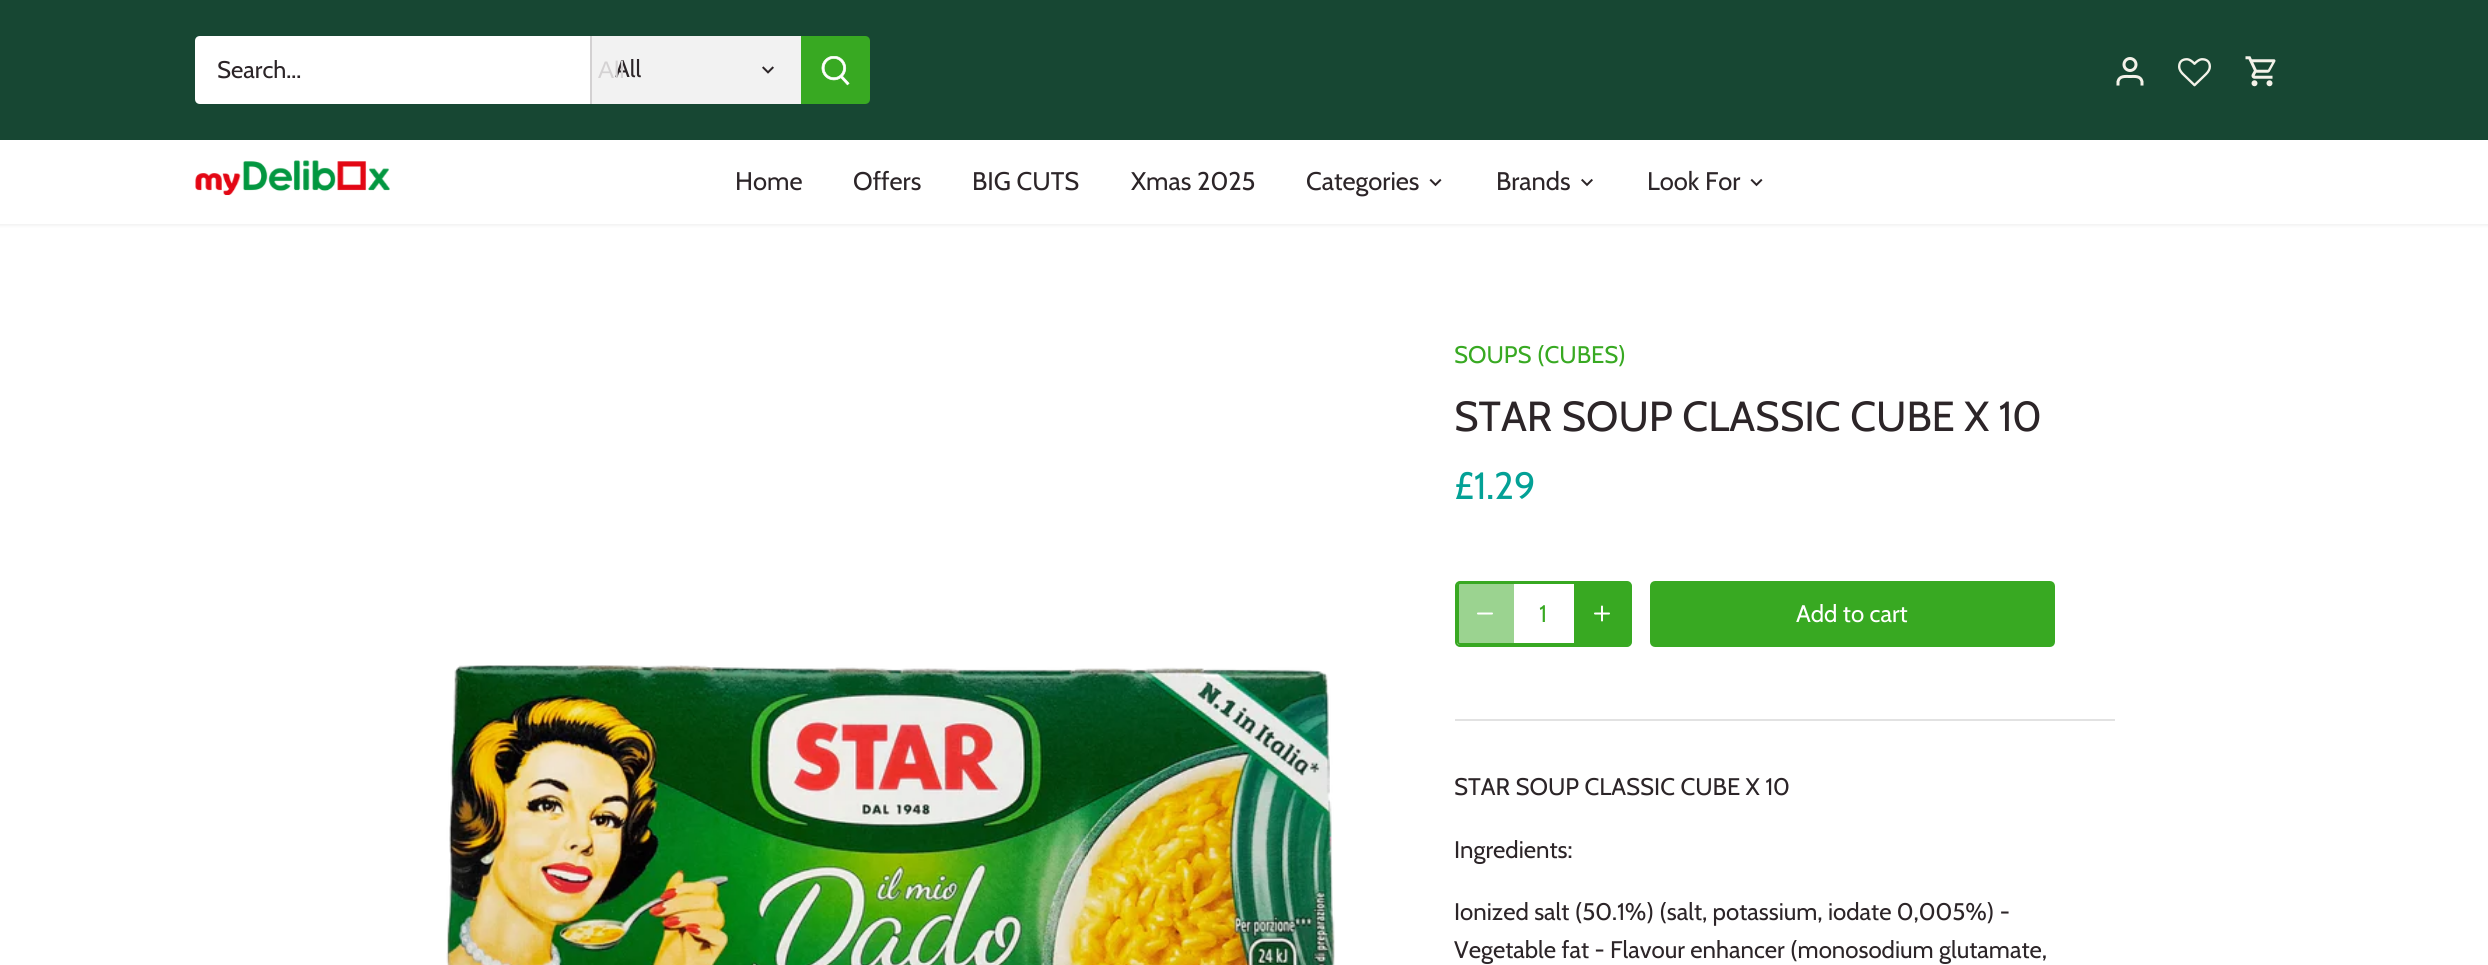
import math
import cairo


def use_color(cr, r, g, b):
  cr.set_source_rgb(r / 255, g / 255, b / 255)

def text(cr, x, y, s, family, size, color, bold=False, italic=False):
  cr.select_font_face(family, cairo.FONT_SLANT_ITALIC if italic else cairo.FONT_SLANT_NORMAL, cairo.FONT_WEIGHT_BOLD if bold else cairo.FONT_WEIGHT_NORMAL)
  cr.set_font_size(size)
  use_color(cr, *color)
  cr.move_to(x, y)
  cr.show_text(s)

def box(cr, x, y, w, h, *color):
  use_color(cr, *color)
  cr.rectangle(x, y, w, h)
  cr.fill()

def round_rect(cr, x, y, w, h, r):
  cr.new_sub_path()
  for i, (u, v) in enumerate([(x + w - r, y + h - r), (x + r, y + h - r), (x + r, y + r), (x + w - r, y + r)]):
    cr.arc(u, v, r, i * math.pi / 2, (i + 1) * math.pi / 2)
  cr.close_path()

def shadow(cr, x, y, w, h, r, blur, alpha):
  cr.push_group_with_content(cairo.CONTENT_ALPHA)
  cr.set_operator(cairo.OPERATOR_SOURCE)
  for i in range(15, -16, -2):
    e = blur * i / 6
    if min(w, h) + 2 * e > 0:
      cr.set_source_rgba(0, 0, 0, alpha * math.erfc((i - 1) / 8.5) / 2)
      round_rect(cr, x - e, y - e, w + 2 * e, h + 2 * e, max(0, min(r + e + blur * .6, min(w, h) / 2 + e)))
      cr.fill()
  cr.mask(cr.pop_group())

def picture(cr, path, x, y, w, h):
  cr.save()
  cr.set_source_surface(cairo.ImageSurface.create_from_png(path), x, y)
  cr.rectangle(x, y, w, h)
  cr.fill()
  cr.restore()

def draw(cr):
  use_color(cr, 255, 255, 255)
  cr.paint()
  use_color(cr, 0, 0, 0)
  shadow(cr, -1, -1, 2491, 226, 0, 2, 0.08)
  box(cr, 0, 140, 2488, 84, 255, 255, 255)
  box(cr, 0, 0, 2488, 140, 23, 71, 51)
  use_color(cr, 255, 255, 255)
  cr.new_path()
  cr.move_to(200, 36)
  cr.line_to(590, 36)
  cr.line_to(590, 104)
  cr.line_to(200, 104)
  cr.curve_to(197, 104, 195, 102, 195, 99)
  cr.line_to(195, 41)
  cr.curve_to(195, 38, 197, 36, 200, 36)
  cr.close_path()
  cr.fill()
  box(cr, 592, 36, 209, 68, 242, 242, 242)
  box(cr, 590, 36, 2, 68, 211, 209, 210)
  picture(cr, "img_01.png", 762, 66, 12, 8)
  use_color(cr, 56, 169, 34)
  cr.new_path()
  cr.move_to(801, 36)
  cr.line_to(865, 36)
  cr.curve_to(868, 36, 870, 38, 870, 41)
  cr.line_to(870, 99)
  cr.curve_to(870, 102, 868, 104, 865, 104)
  cr.line_to(801, 104)
  cr.close_path()
  cr.fill()
  picture(cr, "img_02.png", 821, 56, 29, 30)
  cr.arc(2130, 64.5, 6, 0, 2 * math.pi)
  use_color(cr, 244, 242, 233)
  cr.set_line_width(3)
  cr.stroke()
  cr.new_path()
  cr.move_to(2142, 85.5)
  cr.line_to(2142, 81.5)
  cr.curve_to(2140.5, 75.5, 2134.5, 76.5, 2130, 76.5)
  cr.curve_to(2125.5, 76.5, 2119.5, 75.5, 2118, 81.5)
  cr.line_to(2118, 85.5)
  cr.stroke()
  picture(cr, "img_03.png", 2178, 58, 33, 29)
  picture(cr, "img_04.png", 2245, 56, 31, 31)
  picture(cr, "img_05.png", 195, 160, 195, 36)
  picture(cr, "img_06.png", 1429, 178, 13, 9)
  picture(cr, "img_07.png", 1581, 178, 12, 9)
  picture(cr, "img_06.png", 1750, 178, 13, 9)
  picture(cr, "img_08.png", 446, 665, 889, 300)
  round_rect(cr, 1458, 583, 172, 61, 2)
  use_color(cr, 56, 169, 34)
  cr.set_line_width(2)
  cr.stroke()
  round_rect(cr, 1456, 582, 175, 64, 4)
  cr.stroke()
  cr.set_source_rgba(0.22, 0.663, 0.133, 0.5)
  cr.new_path()
  cr.move_to(1462, 582)
  cr.line_to(1514, 582)
  cr.line_to(1514, 645)
  cr.line_to(1462, 645)
  cr.curve_to(1459, 645, 1457, 643, 1457, 640)
  cr.line_to(1457, 587)
  cr.curve_to(1457, 584, 1459, 582, 1462, 582)
  cr.close_path()
  cr.fill()
  cr.new_path()
  cr.move_to(1478, 613.5)
  cr.line_to(1492, 613.5)
  use_color(cr, 255, 255, 255)
  cr.set_line_cap(cairo.LINE_CAP_ROUND)
  cr.set_line_join(cairo.LINE_JOIN_ROUND)
  cr.stroke()
  use_color(cr, 56, 169, 34)
  cr.new_path()
  cr.move_to(1574, 582)
  cr.line_to(1626, 582)
  cr.curve_to(1629, 582, 1631, 584, 1631, 587)
  cr.line_to(1631, 640)
  cr.curve_to(1631, 643, 1629, 645, 1626, 645)
  cr.line_to(1574, 645)
  cr.close_path()
  cr.fill()
  cr.new_path()
  cr.move_to(1602, 606.5)
  cr.line_to(1602, 620.5)
  cr.move_to(1595, 613.5)
  cr.line_to(1609, 613.5)
  use_color(cr, 255, 255, 255)
  cr.stroke()
  use_color(cr, 56, 169, 34)
  round_rect(cr, 1651.5, 582.5, 402, 63, 3.5)
  cr.fill_preserve()
  cr.set_line_width(3)
  cr.set_line_cap(cairo.LINE_CAP_BUTT)
  cr.set_line_join(cairo.LINE_JOIN_MITER)
  cr.stroke()
  box(cr, 1455, 719, 660, 2, 226, 226, 226)
  text(cr, 217, 78, "Search...", "Cabin", 24, (44, 37, 40))
  text(cr, 615, 77, "All", "Cabin", 24, (44, 37, 40))
  text(cr, 598, 78, "All", "Liberation Sans", 24, (212, 210, 211))
  text(cr, 735, 190, "Home", "Cabin", 25.5, (44, 37, 40))
  text(cr, 853, 190, "Offers", "Cabin", 25.5, (44, 37, 40))
  text(cr, 972, 190, "BIG CUTS", "Cabin", 25.5, (44, 37, 40))
  text(cr, 1131, 190, "Xmas 2025", "Cabin", 25.5, (44, 37, 40))
  text(cr, 1306, 190, "Categories", "Cabin", 25.5, (44, 37, 40))
  text(cr, 1496, 190, "Brands", "Cabin", 25.5, (44, 37, 40))
  text(cr, 1647, 190, "Look For", "Cabin", 25.5, (44, 37, 40))
  text(cr, 1454, 363, "SOUPS (CUBES)", "Cabin", 24, (56, 169, 34))
  text(cr, 1454, 431, "STAR SOUP CLASSIC CUBE X 10", "Cabin", 42, (44, 37, 40))
  text(cr, 1454, 499, "£1.29", "Cabin", 38, (3, 161, 150))
  text(cr, 1539, 622, "1", "Cabin", 24, (56, 169, 34))
  text(cr, 1796, 622, "Add to cart", "Cabin", 24, (255, 255, 255))
  text(cr, 1454, 795, "STAR SOUP CLASSIC CUBE X 10", "Cabin", 24, (44, 37, 40))
  text(cr, 1454, 858, "Ingredients:", "Cabin", 24, (44, 37, 40))
  text(cr, 1454, 920, "Ionized salt (50.1%) (salt, potassium, iodate 0,005%) -", "Cabin", 24, (44, 37, 40))
  text(cr, 1454, 958, "Vegetable fat - Flavour enhancer (monosodium glutamate,", "Cabin", 24, (44, 37, 40))


surface = cairo.ImageSurface(cairo.FORMAT_RGB24, 2488, 965)
cr = cairo.Context(surface)
options = cairo.FontOptions()
options.set_hint_metrics(cairo.HINT_METRICS_OFF)
options.set_hint_style(cairo.HINT_STYLE_NONE)
cr.set_font_options(options)
cr.set_miter_limit(4)
draw(cr)
surface.write_to_png("out.png")
